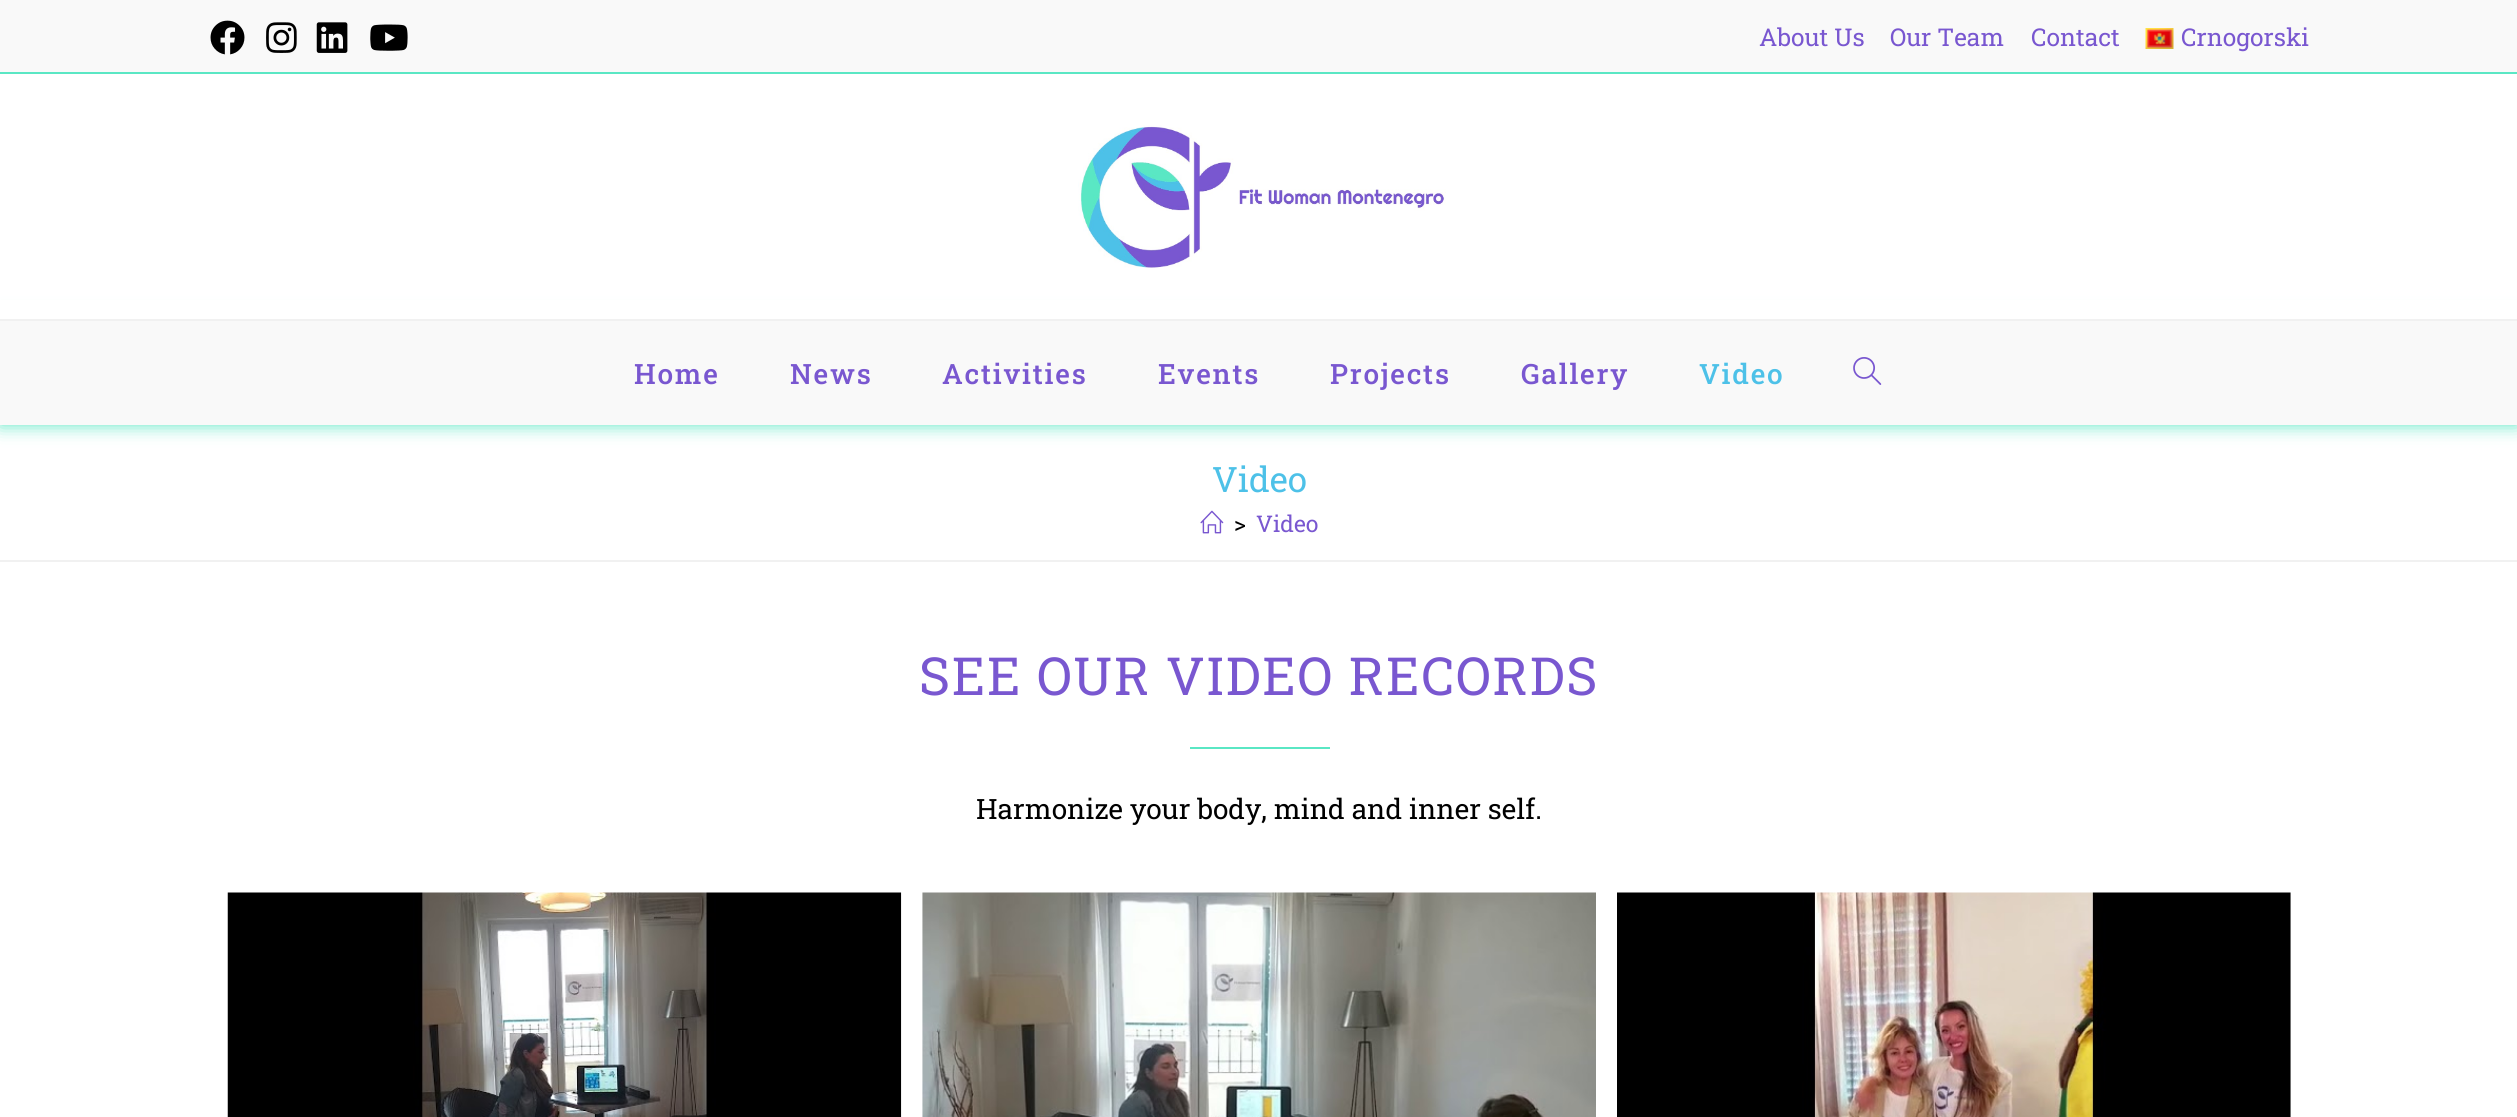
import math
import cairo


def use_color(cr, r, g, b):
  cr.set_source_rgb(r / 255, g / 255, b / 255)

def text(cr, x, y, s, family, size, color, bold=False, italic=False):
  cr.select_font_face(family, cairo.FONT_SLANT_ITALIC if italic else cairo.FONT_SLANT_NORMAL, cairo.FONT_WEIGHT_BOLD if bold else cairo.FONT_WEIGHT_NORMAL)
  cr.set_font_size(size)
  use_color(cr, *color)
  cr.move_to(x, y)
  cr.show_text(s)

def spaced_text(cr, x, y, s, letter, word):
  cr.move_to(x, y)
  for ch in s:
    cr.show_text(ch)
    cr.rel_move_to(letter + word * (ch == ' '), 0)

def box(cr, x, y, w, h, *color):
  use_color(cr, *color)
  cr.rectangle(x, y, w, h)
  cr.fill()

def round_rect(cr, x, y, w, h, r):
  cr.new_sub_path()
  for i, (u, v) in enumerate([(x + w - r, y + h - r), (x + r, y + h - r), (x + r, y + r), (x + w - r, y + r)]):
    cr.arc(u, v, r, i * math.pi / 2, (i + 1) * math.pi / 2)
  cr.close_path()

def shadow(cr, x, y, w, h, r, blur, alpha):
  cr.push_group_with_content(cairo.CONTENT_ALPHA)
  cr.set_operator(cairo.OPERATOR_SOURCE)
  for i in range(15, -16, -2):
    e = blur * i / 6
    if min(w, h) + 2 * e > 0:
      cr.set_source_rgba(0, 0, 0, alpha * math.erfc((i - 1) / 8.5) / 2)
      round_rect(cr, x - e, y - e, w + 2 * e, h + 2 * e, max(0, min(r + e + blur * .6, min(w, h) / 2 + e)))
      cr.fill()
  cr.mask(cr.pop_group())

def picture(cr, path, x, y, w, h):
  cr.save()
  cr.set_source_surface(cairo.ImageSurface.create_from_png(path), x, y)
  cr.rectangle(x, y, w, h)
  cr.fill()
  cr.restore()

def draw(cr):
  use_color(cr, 255, 255, 255)
  cr.paint()
  box(cr, 0, 0, 2517, 72, 249, 249, 249)
  box(cr, 0, 72, 2517, 2, 90, 231, 196)
  picture(cr, "img_01.png", 210, 20, 35, 35)
  picture(cr, "img_02.png", 266, 22, 31, 31)
  picture(cr, "img_03.png", 316, 22, 32, 31)
  picture(cr, "img_04.png", 370, 24, 38, 27)
  picture(cr, "img_05.png", 2145, 28, 29, 21)
  use_color(cr, 90, 231, 196)
  shadow(cr, 0, 319, 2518, 106, 0, 9, 1)
  box(cr, 0, 300, 2517, 19, 255, 255, 255)
  picture(cr, "img_06.png", 1078, 125, 368, 143)
  box(cr, 0, 321, 2517, 104, 249, 249, 249)
  box(cr, 0, 319, 2517, 2, 241, 241, 241)
  picture(cr, "img_07.png", 1853, 357, 29, 28)
  box(cr, 0, 560, 2517, 2, 241, 241, 241)
  picture(cr, "img_08.png", 1200, 510, 24, 24)
  box(cr, 1190, 747, 140, 2, 90, 231, 196)
  picture(cr, "img_09.png", 227, 892, 675, 225)
  picture(cr, "img_10.png", 922, 892, 674, 225)
  picture(cr, "img_11.png", 1617, 892, 674, 225)
  text(cr, 1759, 46, "About Us", "Roboto Slab", 24.5, (121, 87, 208))
  text(cr, 1890, 46, "Our Team", "Roboto Slab", 24.5, (121, 87, 208))
  text(cr, 2031, 46, "Contact", "Roboto Slab", 24.5, (121, 87, 208))
  text(cr, 2181, 46, "Crnogorski", "Roboto Slab", 24.5, (121, 87, 208))
  cr.select_font_face("Roboto Slab Medium")
  cr.set_font_size(28)
  spaced_text(cr, 634, 384, "Home", 1.75, 0)
  spaced_text(cr, 790, 384, "News", 1.75, 0)
  spaced_text(cr, 942, 384, "Activities", 1.75, 0)
  spaced_text(cr, 1158, 384, "Events", 1.75, 0)
  spaced_text(cr, 1330, 384, "Projects", 1.75, 0)
  spaced_text(cr, 1521, 384, "Gallery", 1.75, 0)
  use_color(cr, 77, 193, 232)
  spaced_text(cr, 1699, 384, "Video", 1.75, 0)
  text(cr, 1212, 492, "Video", "Roboto Slab", 35, (77, 193, 232))
  text(cr, 1234, 532, ">", "Roboto Slab", 23, (0, 0, 0))
  text(cr, 1256, 532, "Video", "Roboto Slab", 23, (121, 87, 208))
  cr.set_font_size(52.5)
  spaced_text(cr, 919, 695, "SEE OUR VIDEO RECORDS", 1.75, 0)
  text(cr, 976, 819, "Harmonize your body, mind and inner self.", "Roboto Slab", 28, (0, 0, 0))


surface = cairo.ImageSurface(cairo.FORMAT_RGB24, 2517, 1117)
cr = cairo.Context(surface)
options = cairo.FontOptions()
options.set_hint_metrics(cairo.HINT_METRICS_OFF)
options.set_hint_style(cairo.HINT_STYLE_NONE)
cr.set_font_options(options)
cr.set_miter_limit(4)
draw(cr)
surface.write_to_png("out.png")
